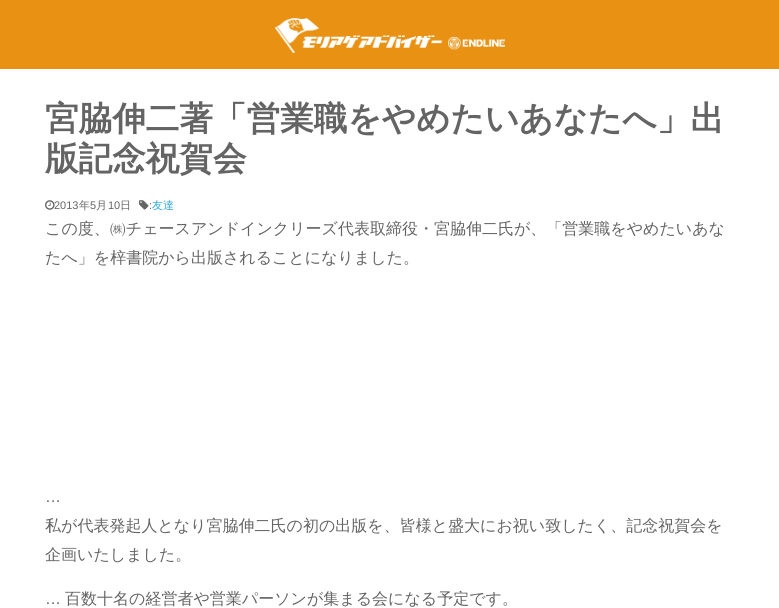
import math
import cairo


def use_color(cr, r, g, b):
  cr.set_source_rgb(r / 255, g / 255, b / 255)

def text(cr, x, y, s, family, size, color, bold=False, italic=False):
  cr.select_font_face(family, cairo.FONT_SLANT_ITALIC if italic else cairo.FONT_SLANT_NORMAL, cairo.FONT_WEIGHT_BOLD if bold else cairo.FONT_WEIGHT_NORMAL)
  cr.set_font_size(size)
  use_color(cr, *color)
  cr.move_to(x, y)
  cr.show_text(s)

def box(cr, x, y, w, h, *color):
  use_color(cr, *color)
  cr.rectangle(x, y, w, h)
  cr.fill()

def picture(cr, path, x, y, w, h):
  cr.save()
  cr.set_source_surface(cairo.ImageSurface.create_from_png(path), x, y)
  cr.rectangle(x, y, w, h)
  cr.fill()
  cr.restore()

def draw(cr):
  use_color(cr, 255, 255, 255)
  cr.paint()
  box(cr, 0, 0, 779, 69, 232, 145, 18)
  picture(cr, "img_01.png", 275, 18, 230, 35)
  picture(cr, "img_02.png", 45, 200, 10, 10)
  picture(cr, "img_03.png", 139, 200, 10, 10)
  text(cr, 45, 130, "宮脇伸二著「営業職をやめたいあなたへ」出", "WenQuanYi Zen Hei", 33.6, (101, 100, 100), bold=True)
  text(cr, 45, 170, "版記念祝賀会", "WenQuanYi Zen Hei", 33.6, (101, 100, 100), bold=True)
  text(cr, 54, 209, "2013", "Liberation Sans", 11, (101, 100, 100))
  text(cr, 79, 209, "年", "WenQuanYi Zen Hei Medium", 11, (101, 100, 100))
  text(cr, 90, 209, "5", "Liberation Sans", 11, (101, 100, 100))
  text(cr, 96, 209, "月", "WenQuanYi Zen Hei Medium", 11, (101, 100, 100))
  text(cr, 108, 209, "10", "Liberation Sans", 11, (101, 100, 100))
  text(cr, 120, 209, "日", "WenQuanYi Zen Hei Medium", 11, (101, 100, 100))
  text(cr, 149, 209, ":", "Liberation Sans", 11, (101, 100, 100))
  text(cr, 152, 209, "友達", "WenQuanYi Zen Hei Medium", 11, (44, 166, 224))
  text(cr, 45, 234, "この度、㈱チェースアンドインクリーズ代表取締役・宮脇伸二氏が、「営業職をやめたいあな", "WenQuanYi Zen Hei Medium", 16, (101, 100, 100))
  text(cr, 45, 263, "たへ」を梓書院から出版されることになりました。", "WenQuanYi Zen Hei Medium", 16, (101, 100, 100))
  text(cr, 45, 502, "…", "Liberation Sans", 16, (101, 100, 100))
  text(cr, 45, 531, "私が代表発起人となり宮脇伸二氏の初の出版を、皆様と盛大にお祝い致したく、記念祝賀会を", "WenQuanYi Zen Hei Medium", 16, (101, 100, 100))
  text(cr, 45, 560, "企画いたしました。", "WenQuanYi Zen Hei Medium", 16, (101, 100, 100))
  text(cr, 45, 604, "…", "Liberation Sans", 16, (101, 100, 100))
  text(cr, 65, 604, "百数十名の経営者や営業パーソンが集まる会になる予定です。", "WenQuanYi Zen Hei Medium", 16, (101, 100, 100))


surface = cairo.ImageSurface(cairo.FORMAT_RGB24, 779, 608)
cr = cairo.Context(surface)
options = cairo.FontOptions()
options.set_hint_metrics(cairo.HINT_METRICS_OFF)
options.set_hint_style(cairo.HINT_STYLE_NONE)
cr.set_font_options(options)
cr.set_miter_limit(4)
draw(cr)
surface.write_to_png("out.png")
